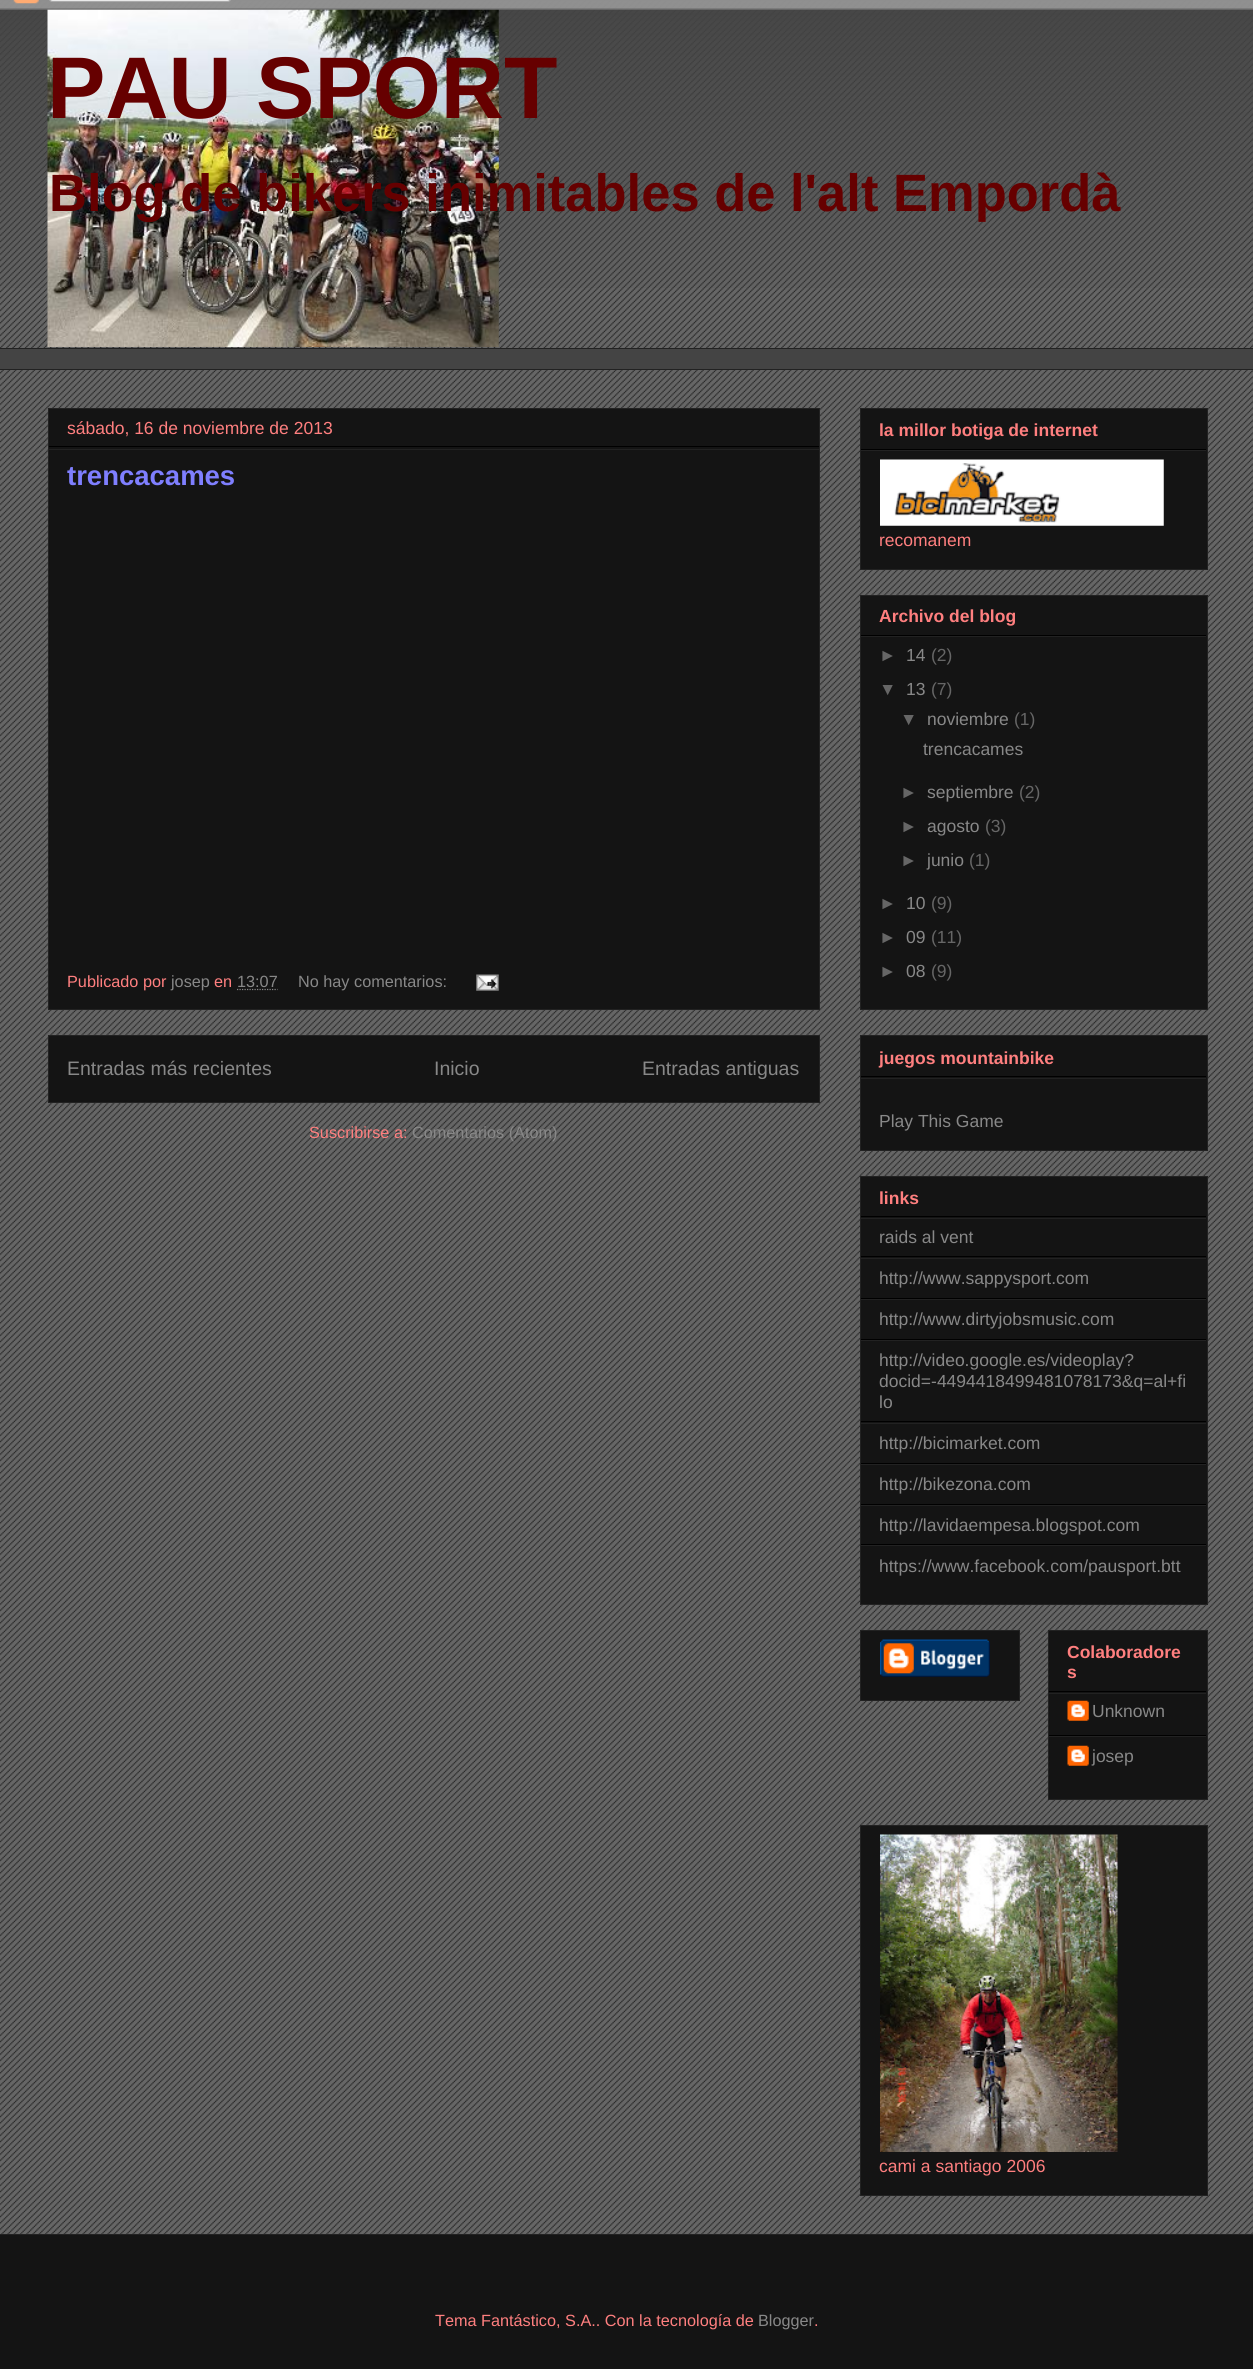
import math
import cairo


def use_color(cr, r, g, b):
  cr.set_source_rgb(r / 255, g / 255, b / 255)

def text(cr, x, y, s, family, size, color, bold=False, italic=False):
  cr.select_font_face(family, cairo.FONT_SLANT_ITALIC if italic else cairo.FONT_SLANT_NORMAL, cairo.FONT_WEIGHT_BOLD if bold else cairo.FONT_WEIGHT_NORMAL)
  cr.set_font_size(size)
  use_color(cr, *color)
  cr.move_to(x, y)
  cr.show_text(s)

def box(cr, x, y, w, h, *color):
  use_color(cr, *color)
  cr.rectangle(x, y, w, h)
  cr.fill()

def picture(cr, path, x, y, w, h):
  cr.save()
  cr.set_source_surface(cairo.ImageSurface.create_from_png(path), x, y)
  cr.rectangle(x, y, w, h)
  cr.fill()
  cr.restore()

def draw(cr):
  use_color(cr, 102, 102, 102)
  cr.paint()
  picture(cr, "img_01.png", 0, 0, 1253, 2234)
  picture(cr, "img_02.png", 0, 0, 1253, 288)
  picture(cr, "img_04.png", 47, 9, 452, 338)
  picture(cr, "img_03.png", 0, 0, 1253, 10)
  box(cr, 0, 349, 1253, 20, 68, 68, 68)
  box(cr, 0, 348, 1253, 1, 34, 34, 34)
  box(cr, 0, 369, 1253, 1, 34, 34, 34)
  use_color(cr, 20, 20, 20)
  cr.rectangle(48.5, 408.5, 771, 601)
  cr.fill_preserve()
  use_color(cr, 34, 34, 34)
  cr.set_line_width(1)
  cr.stroke()
  box(cr, 49, 446, 770, 1, 0, 0, 0)
  box(cr, 49, 449, 770, 1, 34, 34, 34)
  cr.new_path()
  cr.move_to(237, 989.5)
  cr.line_to(277.5, 989.5)
  use_color(cr, 136, 136, 136)
  cr.set_line_width(1.2)
  cr.set_dash([1.25, 1.25])
  cr.stroke()
  picture(cr, "img_05.png", 476, 974, 23, 17)
  use_color(cr, 20, 20, 20)
  cr.rectangle(48.5, 1035.5, 771, 67)
  cr.fill_preserve()
  use_color(cr, 34, 34, 34)
  cr.set_line_width(1)
  cr.set_dash([])
  cr.stroke()
  use_color(cr, 20, 20, 20)
  cr.rectangle(860.5, 408.5, 347, 161)
  cr.fill_preserve()
  use_color(cr, 34, 34, 34)
  cr.stroke()
  box(cr, 861, 449, 345, 1, 0, 0, 0)
  box(cr, 861, 450, 345, 1, 34, 34, 34)
  picture(cr, "img_06.png", 880, 459, 284, 67)
  use_color(cr, 20, 20, 20)
  cr.rectangle(860.5, 595.5, 347, 414)
  cr.fill_preserve()
  use_color(cr, 34, 34, 34)
  cr.stroke()
  box(cr, 861, 635, 345, 1, 0, 0, 0)
  box(cr, 861, 636, 345, 1, 34, 34, 34)
  use_color(cr, 20, 20, 20)
  cr.rectangle(860.5, 1035.5, 347, 115)
  cr.fill_preserve()
  use_color(cr, 34, 34, 34)
  cr.stroke()
  box(cr, 861, 1076, 345, 1, 0, 0, 0)
  box(cr, 861, 1078, 345, 1, 34, 34, 34)
  use_color(cr, 20, 20, 20)
  cr.rectangle(860.5, 1176.5, 347, 428)
  cr.fill_preserve()
  use_color(cr, 34, 34, 34)
  cr.stroke()
  box(cr, 861, 1216, 345, 1, 0, 0, 0)
  box(cr, 861, 1218, 345, 1, 34, 34, 34)
  box(cr, 861, 1256, 345, 1, 0, 0, 0)
  box(cr, 861, 1258, 345, 1, 34, 34, 34)
  box(cr, 861, 1298, 345, 1, 0, 0, 0)
  box(cr, 861, 1299, 345, 1, 34, 34, 34)
  box(cr, 861, 1339, 345, 1, 0, 0, 0)
  box(cr, 861, 1340, 345, 1, 34, 34, 34)
  box(cr, 861, 1421, 345, 1, 0, 0, 0)
  box(cr, 861, 1423, 345, 1, 34, 34, 34)
  box(cr, 861, 1463, 345, 1, 0, 0, 0)
  box(cr, 861, 1464, 345, 1, 34, 34, 34)
  box(cr, 861, 1504, 345, 1, 0, 0, 0)
  box(cr, 861, 1505, 345, 1, 34, 34, 34)
  box(cr, 861, 1544, 345, 1, 0, 0, 0)
  box(cr, 861, 1545, 345, 1, 34, 34, 34)
  use_color(cr, 20, 20, 20)
  cr.rectangle(860.5, 1630.5, 159, 70)
  cr.fill_preserve()
  use_color(cr, 34, 34, 34)
  cr.stroke()
  picture(cr, "img_07.png", 880, 1639, 110, 38)
  use_color(cr, 20, 20, 20)
  cr.rectangle(1048.5, 1630.5, 159, 169)
  cr.fill_preserve()
  use_color(cr, 34, 34, 34)
  cr.stroke()
  box(cr, 1049, 1691, 157, 1, 0, 0, 0)
  box(cr, 1049, 1693, 157, 1, 34, 34, 34)
  box(cr, 1049, 1735, 157, 1, 0, 0, 0)
  picture(cr, "img_08.png", 1067, 1700, 22, 21)
  box(cr, 1049, 1736, 157, 1, 34, 34, 34)
  picture(cr, "img_08.png", 1067, 1745, 22, 21)
  use_color(cr, 20, 20, 20)
  cr.rectangle(860.5, 1825.5, 347, 370)
  cr.fill_preserve()
  use_color(cr, 34, 34, 34)
  cr.stroke()
  picture(cr, "img_09.png", 880, 1834, 238, 318)
  box(cr, 0, 2235, 1253, 134, 20, 20, 20)
  box(cr, 0, 2234, 1253, 1, 34, 34, 34)
  text(cr, 47, 118, "PAU SPORT", "Liberation Sans", 87.5, (102, 0, 0), bold=True)
  text(cr, 49, 211, "Blog de bikers inimitables de l'alt Empordà", "Liberation Sans", 52.5, (102, 0, 0), bold=True)
  text(cr, 67, 434, "sábado, 16 de noviembre de 2013", "Liberation Sans", 17.5, (255, 127, 127))
  text(cr, 67, 485, "trencacames", "Liberation Sans", 27.5, (127, 127, 255), bold=True)
  text(cr, 67, 987, "Publicado por", "Liberation Sans", 16.25, (255, 127, 127))
  text(cr, 171, 987, "josep", "Liberation Sans", 16.25, (136, 136, 136))
  text(cr, 214, 987, "en", "Liberation Sans", 16.25, (255, 127, 127))
  text(cr, 237, 987, "13:07", "Liberation Sans", 16.25, (136, 136, 136))
  text(cr, 298, 987, "No hay comentarios:", "Liberation Sans", 16.25, (136, 136, 136))
  text(cr, 67, 1075, "Entradas más recientes", "Liberation Sans", 19.5, (136, 136, 136))
  text(cr, 434, 1075, "Inicio", "Liberation Sans", 19.5, (136, 136, 136))
  text(cr, 642, 1075, "Entradas antiguas", "Liberation Sans", 19.5, (136, 136, 136))
  text(cr, 309, 1138, "Suscribirse a:", "Liberation Sans", 16.25, (255, 127, 127))
  text(cr, 412, 1138, "Comentarios (Atom)", "Liberation Sans", 16.25, (136, 136, 136))
  text(cr, 879, 436, "la millor botiga de internet", "Liberation Sans", 17.5, (255, 127, 127), bold=True)
  text(cr, 879, 546, "recomanem", "Liberation Sans", 17.5, (255, 127, 127))
  text(cr, 879, 622, "Archivo del blog", "Liberation Sans", 17.5, (255, 127, 127), bold=True)
  text(cr, 879, 661, "►", "Liberation Sans", 17.5, (102, 102, 102))
  text(cr, 906, 661, "14", "Liberation Sans", 17.5, (136, 136, 136))
  text(cr, 931, 661, "(2)", "Liberation Sans", 17.5, (102, 102, 102))
  text(cr, 879, 695, "▼", "Liberation Sans", 17.5, (102, 102, 102))
  text(cr, 906, 695, "13", "Liberation Sans", 17.5, (136, 136, 136))
  text(cr, 931, 695, "(7)", "Liberation Sans", 17.5, (102, 102, 102))
  text(cr, 900, 725, "▼", "Liberation Sans", 17.5, (102, 102, 102))
  text(cr, 927, 725, "noviembre", "Liberation Sans", 17.5, (136, 136, 136))
  text(cr, 1014, 725, "(1)", "Liberation Sans", 17.5, (102, 102, 102))
  text(cr, 923, 755, "trencacames", "Liberation Sans", 17.5, (136, 136, 136))
  text(cr, 900, 798, "►", "Liberation Sans", 17.5, (102, 102, 102))
  text(cr, 927, 798, "septiembre", "Liberation Sans", 17.5, (136, 136, 136))
  text(cr, 1019, 798, "(2)", "Liberation Sans", 17.5, (102, 102, 102))
  text(cr, 900, 832, "►", "Liberation Sans", 17.5, (102, 102, 102))
  text(cr, 927, 832, "agosto", "Liberation Sans", 17.5, (136, 136, 136))
  text(cr, 985, 832, "(3)", "Liberation Sans", 17.5, (102, 102, 102))
  text(cr, 900, 866, "►", "Liberation Sans", 17.5, (102, 102, 102))
  text(cr, 927, 866, "junio", "Liberation Sans", 17.5, (136, 136, 136))
  text(cr, 969, 866, "(1)", "Liberation Sans", 17.5, (102, 102, 102))
  text(cr, 879, 909, "►", "Liberation Sans", 17.5, (102, 102, 102))
  text(cr, 906, 909, "10", "Liberation Sans", 17.5, (136, 136, 136))
  text(cr, 931, 909, "(9)", "Liberation Sans", 17.5, (102, 102, 102))
  text(cr, 879, 943, "►", "Liberation Sans", 17.5, (102, 102, 102))
  text(cr, 906, 943, "09", "Liberation Sans", 17.5, (136, 136, 136))
  text(cr, 931, 943, "(11)", "Liberation Sans", 17.5, (102, 102, 102))
  text(cr, 879, 977, "►", "Liberation Sans", 17.5, (102, 102, 102))
  text(cr, 906, 977, "08", "Liberation Sans", 17.5, (136, 136, 136))
  text(cr, 931, 977, "(9)", "Liberation Sans", 17.5, (102, 102, 102))
  text(cr, 879, 1064, "juegos mountainbike", "Liberation Sans", 17.5, (255, 127, 127), bold=True)
  text(cr, 879, 1127, "Play This Game", "Liberation Sans", 17.5, (136, 136, 136))
  text(cr, 879, 1204, "links", "Liberation Sans", 17.5, (255, 127, 127), bold=True)
  text(cr, 879, 1243, "raids al vent", "Liberation Sans", 17.5, (136, 136, 136))
  text(cr, 879, 1284, "http://www.sappysport.com", "Liberation Sans", 17.5, (136, 136, 136))
  text(cr, 879, 1325, "http://www.dirtyjobsmusic.com", "Liberation Sans", 17.5, (136, 136, 136))
  text(cr, 879, 1366, "http://video.google.es/videoplay?", "Liberation Sans", 17.5, (136, 136, 136))
  text(cr, 879, 1387, "docid=-4494418499481078173&q=al+fi", "Liberation Sans", 17.5, (136, 136, 136))
  text(cr, 879, 1408, "lo", "Liberation Sans", 17.5, (136, 136, 136))
  text(cr, 879, 1449, "http://bicimarket.com", "Liberation Sans", 17.5, (136, 136, 136))
  text(cr, 879, 1490, "http://bikezona.com", "Liberation Sans", 17.5, (136, 136, 136))
  text(cr, 879, 1531, "http://lavidaempesa.blogspot.com", "Liberation Sans", 17.5, (136, 136, 136))
  text(cr, 879, 1572, "https://www.facebook.com/pausport.btt", "Liberation Sans", 17.5, (136, 136, 136))
  text(cr, 1067, 1658, "Colaboradore", "Liberation Sans", 17.5, (255, 127, 127), bold=True)
  text(cr, 1067, 1678, "s", "Liberation Sans", 17.5, (255, 127, 127), bold=True)
  text(cr, 1092, 1717, "Unknown", "Liberation Sans", 17.5, (136, 136, 136))
  text(cr, 1092, 1762, "josep", "Liberation Sans", 17.5, (136, 136, 136))
  text(cr, 879, 2172, "cami a santiago 2006", "Liberation Sans", 17.5, (255, 127, 127))
  text(cr, 435, 2326, "Tema Fantástico, S.A.. Con la tecnología de", "Liberation Sans", 16.25, (255, 127, 127))
  text(cr, 758, 2326, "Blogger", "Liberation Sans", 16.25, (136, 136, 136))
  text(cr, 814, 2326, ".", "Liberation Sans", 16.25, (255, 127, 127))


surface = cairo.ImageSurface(cairo.FORMAT_RGB24, 1253, 2369)
cr = cairo.Context(surface)
options = cairo.FontOptions()
options.set_hint_metrics(cairo.HINT_METRICS_OFF)
options.set_hint_style(cairo.HINT_STYLE_NONE)
cr.set_font_options(options)
cr.set_miter_limit(4)
draw(cr)
surface.write_to_png("out.png")
